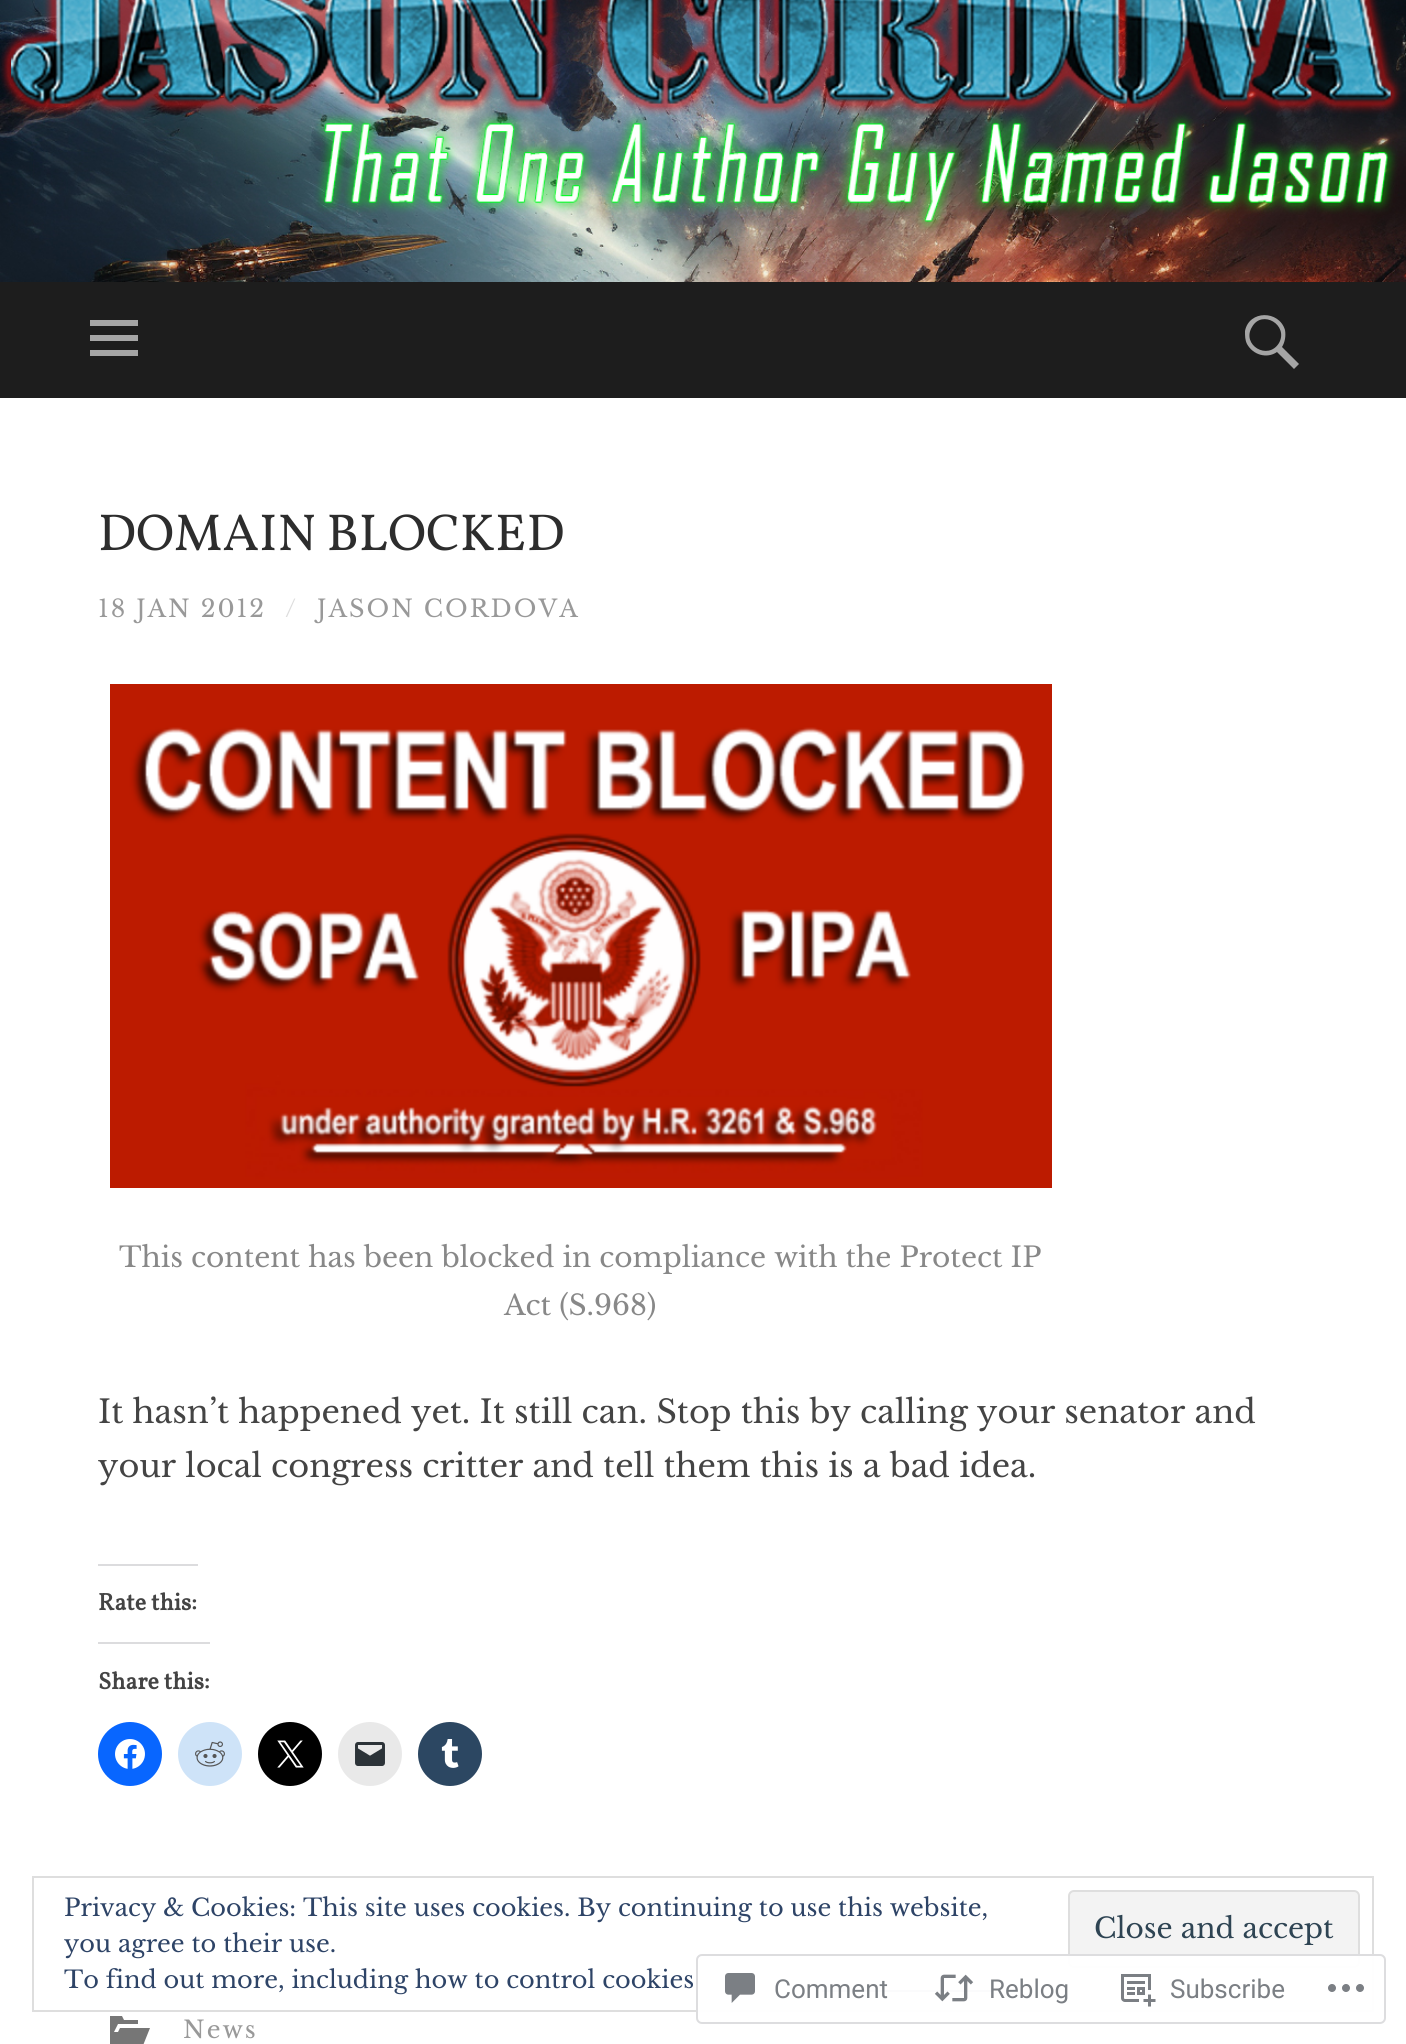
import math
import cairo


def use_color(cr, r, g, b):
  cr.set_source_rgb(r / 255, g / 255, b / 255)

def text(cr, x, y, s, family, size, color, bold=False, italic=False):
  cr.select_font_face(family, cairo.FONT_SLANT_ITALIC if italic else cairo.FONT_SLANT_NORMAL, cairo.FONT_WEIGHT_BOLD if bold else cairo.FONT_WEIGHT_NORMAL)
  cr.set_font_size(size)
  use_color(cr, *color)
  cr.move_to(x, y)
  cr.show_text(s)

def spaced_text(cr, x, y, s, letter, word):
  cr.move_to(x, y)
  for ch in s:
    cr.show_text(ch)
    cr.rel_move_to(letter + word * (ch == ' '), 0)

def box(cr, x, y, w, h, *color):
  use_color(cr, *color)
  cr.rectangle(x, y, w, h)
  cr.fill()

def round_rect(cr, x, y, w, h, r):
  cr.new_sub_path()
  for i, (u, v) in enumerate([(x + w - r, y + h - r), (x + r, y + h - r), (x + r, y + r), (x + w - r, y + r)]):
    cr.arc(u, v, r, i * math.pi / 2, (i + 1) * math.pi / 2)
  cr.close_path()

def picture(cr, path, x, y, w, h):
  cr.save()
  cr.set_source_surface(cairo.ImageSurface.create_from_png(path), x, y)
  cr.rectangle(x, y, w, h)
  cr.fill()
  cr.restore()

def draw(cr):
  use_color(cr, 255, 255, 255)
  cr.paint()
  picture(cr, "img_01.png", 0, 0, 1406, 282)
  box(cr, 0, 282, 1406, 116, 29, 29, 29)
  use_color(cr, 165, 165, 165)
  cr.new_path()
  cr.move_to(90, 356)
  cr.line_to(90, 350)
  cr.line_to(138, 350)
  cr.line_to(138, 356)
  cr.close_path()
  cr.move_to(90, 320)
  cr.line_to(138, 320)
  cr.line_to(138, 326)
  cr.line_to(90, 326)
  cr.close_path()
  cr.move_to(90, 341)
  cr.line_to(90, 335)
  cr.line_to(138, 335)
  cr.line_to(138, 341)
  cr.close_path()
  cr.fill()
  cr.new_path()
  cr.move_to(1299, 364)
  cr.line_to(1294, 369)
  cr.line_to(1277, 352)
  cr.curve_to(1267, 359, 1253, 355, 1247, 344)
  cr.curve_to(1245, 340, 1245, 336, 1245, 331)
  cr.curve_to(1249, 310, 1279, 310, 1285, 330)
  cr.curve_to(1286, 336, 1285, 342, 1282, 347)
  cr.close_path()
  cr.move_to(1252, 327)
  cr.curve_to(1241, 345, 1268, 361, 1279, 343)
  cr.curve_to(1289, 325, 1262, 309, 1252, 327)
  cr.close_path()
  cr.fill()
  picture(cr, "img_02.png", 110, 684, 942, 504)
  box(cr, 98, 1564, 100, 2, 220, 220, 222)
  box(cr, 98, 1642, 112, 2, 220, 220, 222)
  use_color(cr, 8, 102, 255)
  cr.arc(130, 1754, 32, 0, 2 * math.pi)
  cr.fill()
  picture(cr, "img_03.png", 115, 1739, 30, 30)
  use_color(cr, 206, 227, 248)
  cr.arc(210, 1754, 32, 0, 2 * math.pi)
  cr.fill()
  picture(cr, "img_04.png", 195, 1741, 30, 26)
  use_color(cr, 0, 0, 0)
  cr.arc(290, 1754, 32, 0, 2 * math.pi)
  cr.fill()
  picture(cr, "img_05.png", 277, 1740, 27, 28)
  use_color(cr, 233, 233, 233)
  cr.arc(370, 1754, 32, 0, 2 * math.pi)
  cr.fill()
  picture(cr, "img_06.png", 355, 1742, 30, 24)
  use_color(cr, 44, 71, 98)
  cr.arc(450, 1754, 32, 0, 2 * math.pi)
  cr.fill()
  picture(cr, "img_07.png", 441, 1739, 18, 29)
  use_color(cr, 118, 118, 118)
  cr.new_path()
  cr.move_to(120, 2028)
  cr.line_to(150, 2028)
  cr.line_to(142, 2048)
  cr.line_to(110, 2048)
  cr.line_to(110, 2016)
  cr.line_to(122, 2016)
  cr.line_to(124, 2020)
  cr.line_to(138, 2020)
  cr.line_to(138, 2024)
  cr.line_to(118, 2024)
  cr.line_to(114, 2032)
  cr.line_to(118, 2032)
  cr.close_path()
  cr.fill()
  cr.rectangle(33, 1877, 1340, 134)
  use_color(cr, 222, 222, 222)
  cr.stroke()
  use_color(cr, 243, 243, 243)
  round_rect(cr, 1069, 1891, 290, 76, 5)
  cr.fill_preserve()
  use_color(cr, 222, 222, 222)
  cr.stroke()
  box(cr, 822, 1990, 170, 2, 46, 68, 103)
  cr.set_source_rgba(1, 1, 1, 0.98)
  round_rect(cr, 696, 1954, 690, 70, 6)
  cr.fill()
  round_rect(cr, 697, 1955, 688, 68, 5)
  cr.set_source_rgba(0.863, 0.863, 0.871, 0.98)
  cr.stroke()
  picture(cr, "img_08.png", 725, 1973, 30, 30)
  picture(cr, "img_09.png", 934, 1974, 40, 28)
  picture(cr, "img_10.png", 1121, 1974, 35, 33)
  picture(cr, "img_11.png", 1328, 1984, 36, 8)
  text(cr, 98, 550, "DOMAIN BLOCKED", "Vollkorn", 52, (45, 45, 45))
  cr.select_font_face("Libre Baskerville")
  cr.set_font_size(24)
  use_color(cr, 153, 153, 153)
  spaced_text(cr, 98, 617, "18 JAN 2012", 2, 0)
  use_color(cr, 221, 221, 221)
  spaced_text(cr, 285, 617, "/", 2, 0)
  use_color(cr, 153, 153, 153)
  spaced_text(cr, 317, 617, "JASON CORDOVA", 2, 0)
  text(cr, 119, 1267, "This content has been blocked in compliance with the Protect IP", "Libre Baskerville", 28, (136, 136, 136))
  text(cr, 504, 1315, "Act (S.968)", "Libre Baskerville", 28, (136, 136, 136))
  text(cr, 98, 1423, "It hasn’t happened yet. It still can. Stop this by calling your senator and", "Libre Baskerville", 32, (68, 68, 68))
  text(cr, 98, 1477, "your local congress critter and tell them this is a bad idea.", "Libre Baskerville", 32, (68, 68, 68))
  text(cr, 98, 1610, "Rate this:", "Vollkorn", 24, (68, 68, 68), bold=True)
  text(cr, 98, 1689, "Share this:", "Vollkorn", 24, (68, 68, 68), bold=True)
  cr.select_font_face("Libre Baskerville")
  use_color(cr, 153, 153, 153)
  spaced_text(cr, 183, 2038, "News", 2, 0)
  text(cr, 64, 1916, "Privacy & Cookies: This site uses cookies. By continuing to use this website,", "Libre Baskerville", 24, (46, 68, 103))
  text(cr, 64, 1952, "you agree to their use.", "Libre Baskerville", 24, (46, 68, 103))
  text(cr, 1094, 1938, "Close and accept", "Libre Baskerville", 28, (46, 68, 83))
  text(cr, 64, 1988, "To find out more, including how to control cookies", "Libre Baskerville", 24, (46, 68, 103))
  text(cr, 774, 1998, "Comment", "Roboto", 26, (123, 127, 132))
  text(cr, 989, 1998, "Reblog", "Roboto", 26, (123, 127, 132))
  text(cr, 1170, 1998, "Subscribe", "Roboto", 26, (123, 127, 132))


surface = cairo.ImageSurface(cairo.FORMAT_RGB24, 1406, 2044)
cr = cairo.Context(surface)
options = cairo.FontOptions()
options.set_hint_metrics(cairo.HINT_METRICS_OFF)
options.set_hint_style(cairo.HINT_STYLE_NONE)
cr.set_font_options(options)
cr.set_miter_limit(4)
draw(cr)
surface.write_to_png("out.png")
